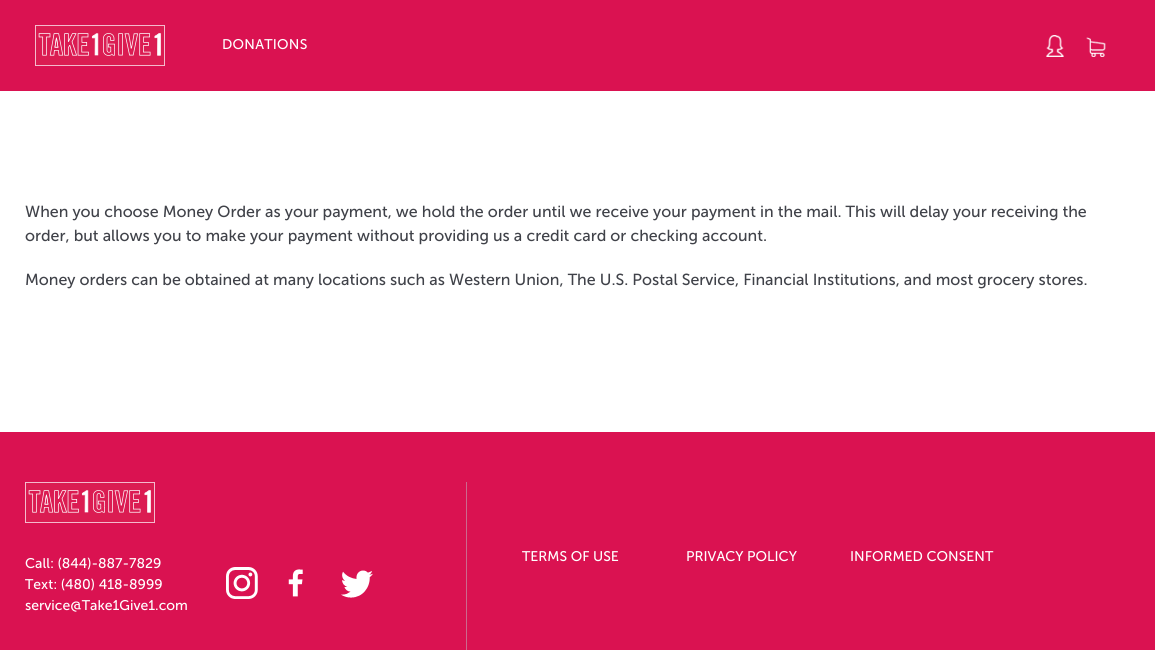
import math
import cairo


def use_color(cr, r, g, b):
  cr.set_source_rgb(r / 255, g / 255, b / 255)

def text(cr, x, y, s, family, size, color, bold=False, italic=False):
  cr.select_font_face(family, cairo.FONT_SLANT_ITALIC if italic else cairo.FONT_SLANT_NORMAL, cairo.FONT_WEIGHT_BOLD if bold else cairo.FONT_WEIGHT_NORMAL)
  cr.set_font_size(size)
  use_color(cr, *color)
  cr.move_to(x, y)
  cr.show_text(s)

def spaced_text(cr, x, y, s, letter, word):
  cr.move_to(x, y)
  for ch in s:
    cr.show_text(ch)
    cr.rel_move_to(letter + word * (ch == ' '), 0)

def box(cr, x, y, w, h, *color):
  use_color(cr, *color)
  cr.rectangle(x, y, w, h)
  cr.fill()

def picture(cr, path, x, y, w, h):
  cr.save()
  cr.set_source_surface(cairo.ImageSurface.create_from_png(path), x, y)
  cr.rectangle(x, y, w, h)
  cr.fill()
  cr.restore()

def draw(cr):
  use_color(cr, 255, 255, 255)
  cr.paint()
  box(cr, 0, 0, 1155, 91, 218, 18, 81)
  picture(cr, "img_01.png", 35, 25, 130, 41)
  picture(cr, "img_02.png", 1046, 35, 18, 22)
  picture(cr, "img_03.png", 1086, 37, 20, 20)
  box(cr, 0, 432, 1155, 218, 218, 18, 81)
  box(cr, 466, 482, 1, 168, 203, 105, 141)
  picture(cr, "img_01.png", 25, 482, 130, 41)
  picture(cr, "img_04.png", 226, 567, 32, 32)
  picture(cr, "img_05.png", 288, 569, 15, 28)
  picture(cr, "img_06.png", 341, 570, 32, 28)
  cr.select_font_face("Museo Sans")
  cr.set_font_size(14)
  use_color(cr, 255, 255, 255)
  spaced_text(cr, 222, 49, "DONATIONS", 0.25, 0)
  text(cr, 25, 217, "When you choose Money Order as your payment, we hold the order until we receive your payment in the mail. This will delay your receiving the", "Museo Sans", 16, (64, 66, 73))
  text(cr, 25, 241, "order, but allows you to make your payment without providing us a credit card or checking account.", "Museo Sans", 16, (64, 66, 73))
  text(cr, 25, 285, "Money orders can be obtained at many locations such as Western Union, The U.S. Postal Service, Financial Institutions, and most grocery stores.", "Museo Sans", 16, (64, 66, 73))
  text(cr, 25, 568, "Call: (844)-887-7829", "Museo Sans", 14, (255, 255, 255))
  text(cr, 25, 589, "Text: (480) 418-8999", "Museo Sans", 14, (255, 255, 255))
  text(cr, 25, 610, "service@Take1Give1.com", "Museo Sans", 14, (255, 255, 255))
  text(cr, 522, 561, "TERMS OF USE", "Museo Sans", 14, (255, 255, 255))
  text(cr, 686, 561, "PRIVACY POLICY", "Museo Sans", 14, (255, 255, 255))
  text(cr, 850, 561, "INFORMED CONSENT", "Museo Sans", 14, (255, 255, 255))


surface = cairo.ImageSurface(cairo.FORMAT_RGB24, 1155, 650)
cr = cairo.Context(surface)
options = cairo.FontOptions()
options.set_hint_metrics(cairo.HINT_METRICS_OFF)
options.set_hint_style(cairo.HINT_STYLE_NONE)
cr.set_font_options(options)
cr.set_miter_limit(4)
draw(cr)
surface.write_to_png("out.png")
